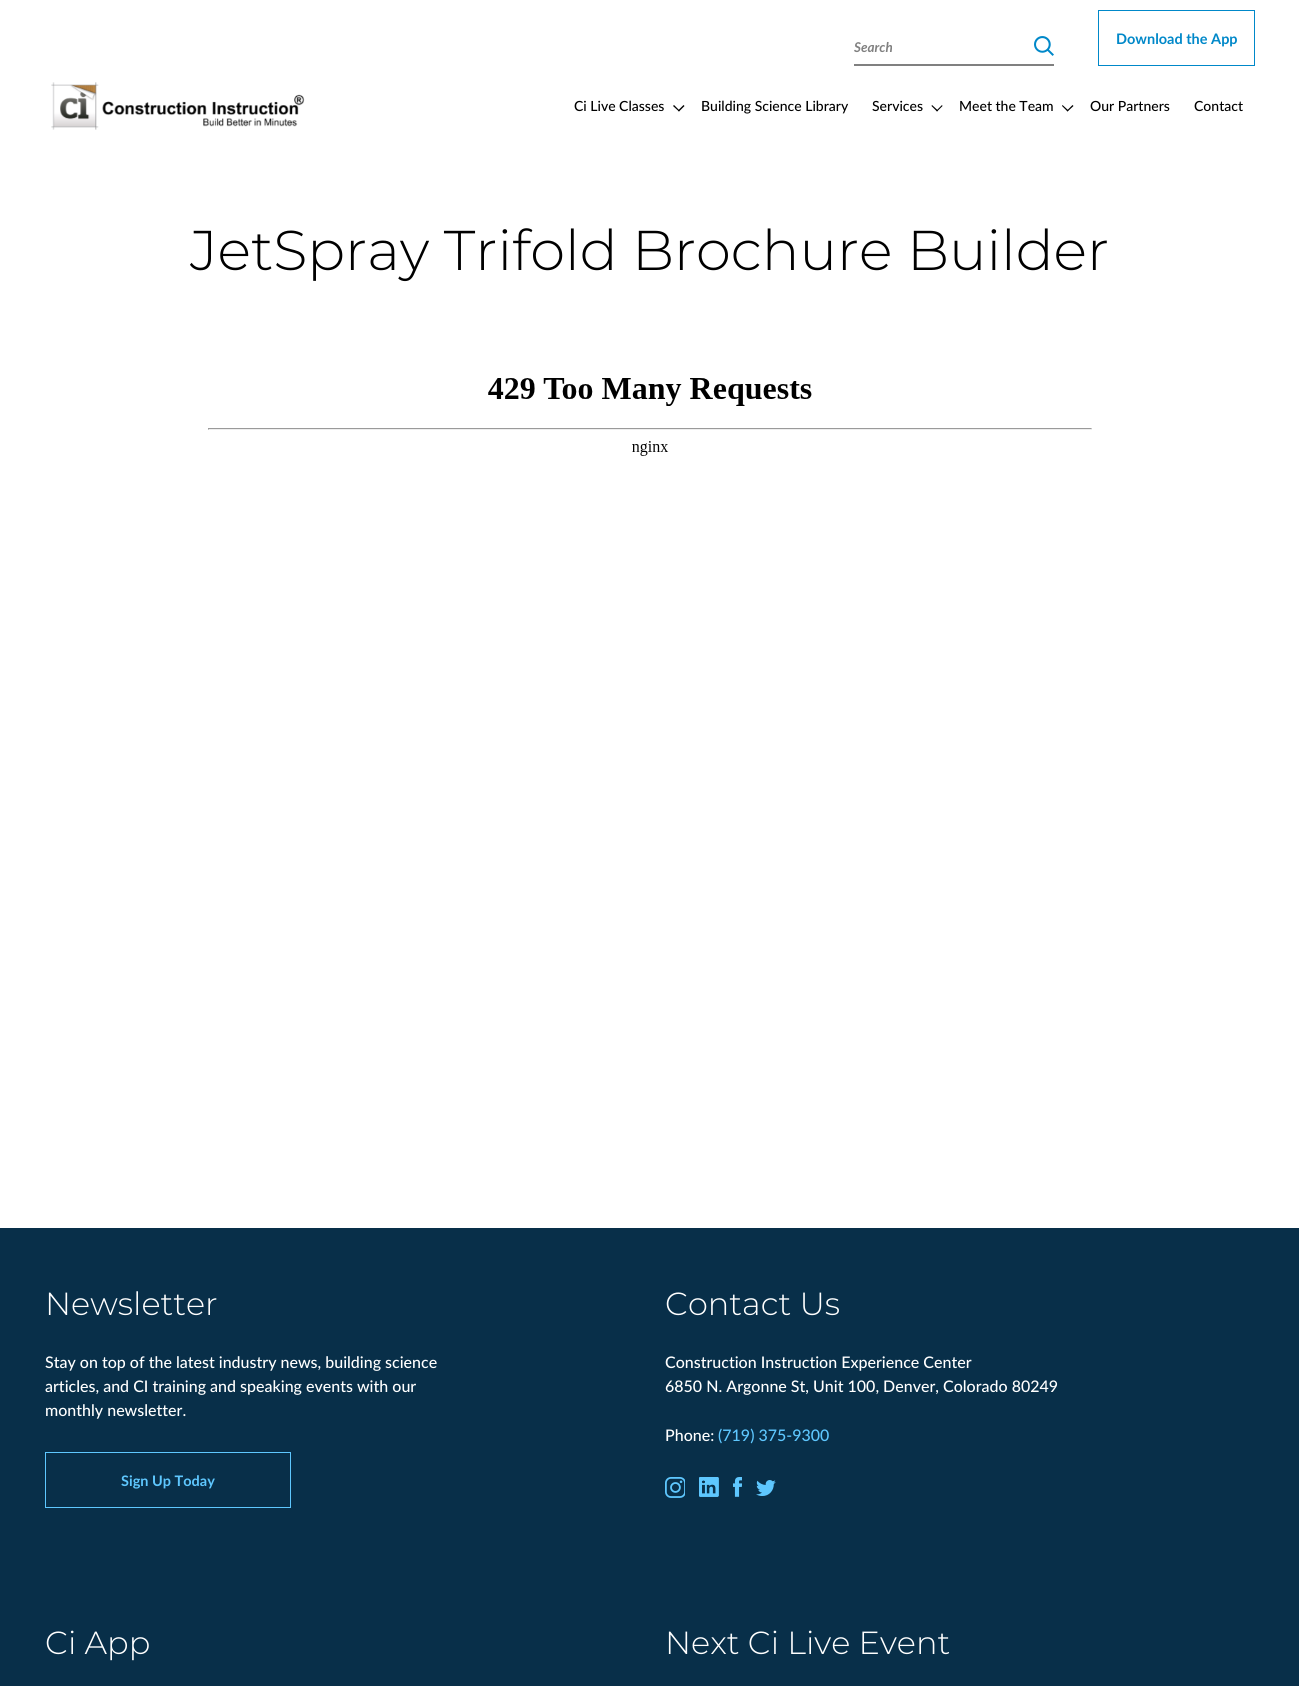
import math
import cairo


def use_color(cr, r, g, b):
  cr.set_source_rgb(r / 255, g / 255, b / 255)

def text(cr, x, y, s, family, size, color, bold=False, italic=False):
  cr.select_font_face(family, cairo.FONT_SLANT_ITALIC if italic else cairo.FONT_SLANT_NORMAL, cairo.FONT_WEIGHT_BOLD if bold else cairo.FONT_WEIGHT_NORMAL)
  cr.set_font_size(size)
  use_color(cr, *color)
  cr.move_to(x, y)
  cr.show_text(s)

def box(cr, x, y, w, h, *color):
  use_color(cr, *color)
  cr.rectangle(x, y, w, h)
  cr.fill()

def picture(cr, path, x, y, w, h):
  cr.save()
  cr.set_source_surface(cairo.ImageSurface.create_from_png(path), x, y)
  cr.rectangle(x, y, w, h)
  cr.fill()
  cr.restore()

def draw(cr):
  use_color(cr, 255, 255, 255)
  cr.paint()
  box(cr, 854, 64, 200, 2, 128, 128, 128)
  picture(cr, "img_01.png", 1034, 36, 20, 20)
  cr.rectangle(1098.5, 10.5, 156, 55)
  use_color(cr, 0, 136, 201)
  cr.set_line_width(1)
  cr.stroke()
  picture(cr, "img_02.png", 51, 82, 254, 48)
  use_color(cr, 0, 0, 0)
  cr.new_path()
  cr.move_to(684.5, 106)
  cr.line_to(679, 111.5)
  cr.line_to(678, 110.5)
  cr.line_to(683.5, 105)
  cr.close_path()
  cr.fill()
  cr.new_path()
  cr.move_to(679.5, 110.5)
  cr.line_to(679, 111.5)
  cr.line_to(673, 106)
  cr.line_to(674, 105)
  cr.close_path()
  cr.fill()
  cr.new_path()
  cr.move_to(942.5, 106)
  cr.line_to(937, 111.5)
  cr.line_to(936.5, 110.5)
  cr.line_to(942, 105)
  cr.close_path()
  cr.fill()
  cr.new_path()
  cr.move_to(938, 110.5)
  cr.line_to(937, 111.5)
  cr.line_to(931.5, 106)
  cr.line_to(932, 105)
  cr.close_path()
  cr.fill()
  cr.new_path()
  cr.move_to(1073.5, 106)
  cr.line_to(1067.5, 111.5)
  cr.line_to(1067, 110.5)
  cr.line_to(1072.5, 105)
  cr.close_path()
  cr.fill()
  cr.new_path()
  cr.move_to(1068.5, 110.5)
  cr.line_to(1067.5, 111.5)
  cr.line_to(1062, 106)
  cr.line_to(1062.5, 105)
  cr.close_path()
  cr.fill()
  picture(cr, "img_03.png", 208, 378, 884, 78)
  box(cr, 0, 1228, 1299, 458, 8, 47, 73)
  cr.rectangle(45.5, 1452.5, 245, 55)
  use_color(cr, 94, 199, 254)
  cr.stroke()
  picture(cr, "img_04.png", 665, 1477, 20, 21)
  picture(cr, "img_05.png", 699, 1477, 20, 20)
  picture(cr, "img_06.png", 733, 1477, 9, 20)
  picture(cr, "img_07.png", 756, 1480, 20, 16)
  text(cr, 854, 52, "Search", "Lato", 13.5, (128, 128, 128), bold=True, italic=True)
  text(cr, 1116, 44, "Download the App", "Lato", 14.5, (0, 136, 201), bold=True)
  text(cr, 574, 111, "Ci Live Classes", "Lato Medium", 14, (0, 0, 0))
  text(cr, 701, 111, "Building Science Library", "Lato Medium", 14, (0, 0, 0))
  text(cr, 872, 111, "Services", "Lato Medium", 14, (0, 0, 0))
  text(cr, 959, 111, "Meet the Team", "Lato Medium", 14, (0, 0, 0))
  text(cr, 1090, 111, "Our Partners", "Lato Medium", 14, (0, 0, 0))
  text(cr, 1194, 111, "Contact", "Lato Medium", 14, (0, 0, 0))
  text(cr, 190, 270, "JetSpray Trifold Brochure Builder", "Montserrat Light", 56, (0, 0, 0))
  text(cr, 45, 1315, "Newsletter", "Montserrat Light", 32, (255, 255, 255))
  text(cr, 45, 1368, "Stay on top of the latest industry news, building science", "Lato Medium", 16, (255, 255, 255))
  text(cr, 45, 1392, "articles, and CI training and speaking events with our", "Lato Medium", 16, (255, 255, 255))
  text(cr, 45, 1416, "monthly newsletter.", "Lato Medium", 16, (255, 255, 255))
  text(cr, 121, 1486, "Sign Up Today", "Lato", 14.5, (94, 199, 254), bold=True)
  text(cr, 665, 1315, "Contact Us", "Montserrat Light", 32, (255, 255, 255))
  text(cr, 665, 1368, "Construction Instruction Experience Center", "Lato Medium", 16, (255, 255, 255))
  text(cr, 665, 1392, "6850 N. Argonne St, Unit 100, Denver, Colorado 80249", "Lato Medium", 16, (255, 255, 255))
  text(cr, 665, 1441, "Phone:", "Lato Medium", 16, (255, 255, 255))
  text(cr, 718, 1441, "(719) 375-9300", "Lato Medium", 16, (94, 199, 254))
  text(cr, 45, 1654, "Ci App", "Montserrat Light", 32, (255, 255, 255))
  text(cr, 665, 1654, "Next Ci Live Event", "Montserrat Light", 32, (255, 255, 255))


surface = cairo.ImageSurface(cairo.FORMAT_RGB24, 1299, 1686)
cr = cairo.Context(surface)
options = cairo.FontOptions()
options.set_hint_metrics(cairo.HINT_METRICS_OFF)
options.set_hint_style(cairo.HINT_STYLE_NONE)
cr.set_font_options(options)
cr.set_miter_limit(4)
draw(cr)
surface.write_to_png("out.png")
